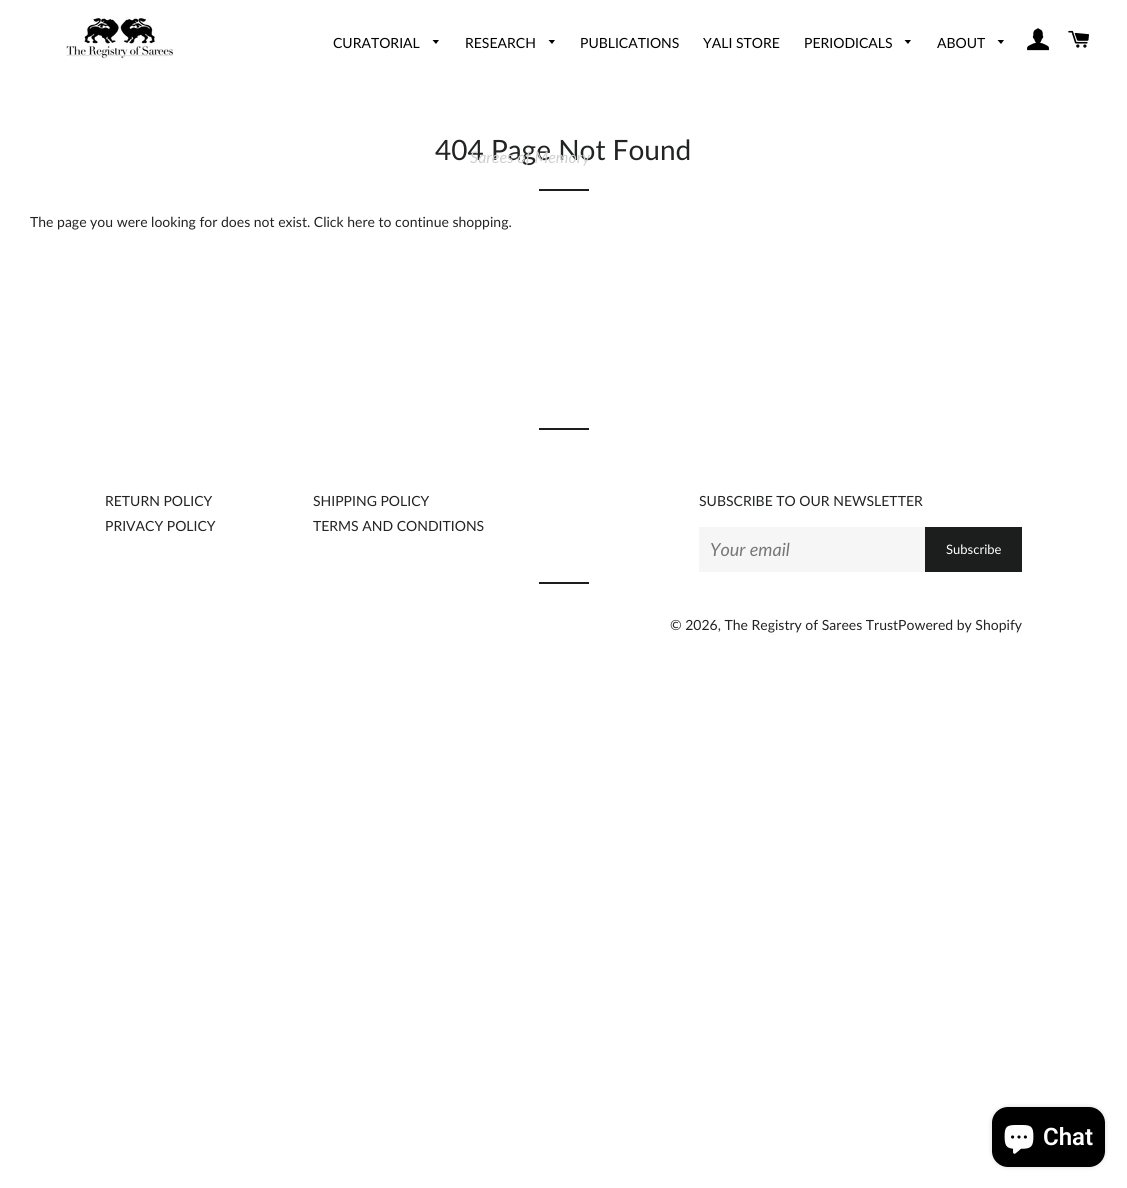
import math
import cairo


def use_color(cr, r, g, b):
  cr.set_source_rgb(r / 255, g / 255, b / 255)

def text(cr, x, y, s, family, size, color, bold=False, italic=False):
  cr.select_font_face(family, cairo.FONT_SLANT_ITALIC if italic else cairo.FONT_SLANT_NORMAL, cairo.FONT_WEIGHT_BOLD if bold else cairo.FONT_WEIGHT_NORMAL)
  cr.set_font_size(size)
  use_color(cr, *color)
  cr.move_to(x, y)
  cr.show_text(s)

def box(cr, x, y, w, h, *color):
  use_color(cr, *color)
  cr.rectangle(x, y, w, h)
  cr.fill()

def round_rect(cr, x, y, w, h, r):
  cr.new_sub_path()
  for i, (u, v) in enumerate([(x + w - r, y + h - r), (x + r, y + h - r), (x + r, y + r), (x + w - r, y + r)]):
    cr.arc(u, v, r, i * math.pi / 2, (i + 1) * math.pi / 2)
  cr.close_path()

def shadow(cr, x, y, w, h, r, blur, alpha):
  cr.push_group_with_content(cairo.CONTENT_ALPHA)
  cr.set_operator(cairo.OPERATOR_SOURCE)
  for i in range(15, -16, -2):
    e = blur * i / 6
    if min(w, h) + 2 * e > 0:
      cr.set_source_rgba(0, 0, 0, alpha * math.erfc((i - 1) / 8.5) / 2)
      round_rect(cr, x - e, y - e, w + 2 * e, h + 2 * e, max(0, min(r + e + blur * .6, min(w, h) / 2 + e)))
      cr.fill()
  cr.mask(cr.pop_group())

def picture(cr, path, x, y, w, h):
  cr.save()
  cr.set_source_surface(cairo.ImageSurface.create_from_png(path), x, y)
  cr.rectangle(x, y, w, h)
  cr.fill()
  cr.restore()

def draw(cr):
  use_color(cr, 255, 255, 255)
  cr.paint()
  picture(cr, "img_01.png", 66, 16, 108, 44)
  use_color(cr, 0, 0, 0)
  cr.new_path()
  cr.move_to(432.5, 40)
  cr.line_to(436, 44)
  cr.line_to(439, 40)
  cr.close_path()
  cr.fill()
  cr.new_path()
  cr.move_to(548.5, 40)
  cr.line_to(552, 44)
  cr.line_to(555, 40)
  cr.close_path()
  cr.fill()
  cr.new_path()
  cr.move_to(904.5, 40)
  cr.line_to(908, 44)
  cr.line_to(911, 40)
  cr.close_path()
  cr.fill()
  cr.new_path()
  cr.move_to(997.5, 40)
  cr.line_to(1001, 44)
  cr.line_to(1004, 40)
  cr.close_path()
  cr.fill()
  picture(cr, "img_02.png", 1027, 28, 22, 23)
  picture(cr, "img_03.png", 1068, 30, 21, 18)
  box(cr, 539, 189, 50, 2, 28, 29, 29)
  box(cr, 539, 428, 50, 2, 28, 29, 29)
  box(cr, 699, 527, 226, 45, 246, 246, 246)
  box(cr, 925, 527, 97, 45, 28, 29, 29)
  box(cr, 539, 582, 50, 2, 28, 29, 29)
  use_color(cr, 0, 0, 0)
  shadow(cr, 992, 1107, 113, 60, 16, 2.5, 0.15)
  use_color(cr, 0, 0, 0)
  round_rect(cr, 992, 1107, 113, 60, 16)
  cr.fill()
  picture(cr, "img_04.png", 1004, 1125, 30, 29)
  text(cr, 333, 48, "CURATORIAL", "Lato", 14, (0, 0, 0))
  text(cr, 465, 48, "RESEARCH", "Lato", 14, (0, 0, 0))
  text(cr, 580, 48, "PUBLICATIONS", "Lato", 14, (0, 0, 0))
  text(cr, 703, 48, "YALI STORE", "Lato", 14, (0, 0, 0))
  text(cr, 804, 48, "PERIODICALS", "Lato", 14, (0, 0, 0))
  text(cr, 937, 48, "ABOUT", "Lato", 14, (0, 0, 0))
  text(cr, 435, 160, "404 Page Not Found", "Lato", 28, (34, 35, 35))
  text(cr, 470, 163, "Sarees of Memory", "Lato", 16, (208, 208, 208), italic=True)
  text(cr, 30, 227, "The page you were looking for does not exist. Click here to continue shopping.", "Lato", 14, (34, 35, 35))
  text(cr, 105, 506, "RETURN POLICY", "Lato", 14, (34, 35, 35))
  text(cr, 313, 506, "SHIPPING POLICY", "Lato", 14, (34, 35, 35))
  text(cr, 105, 531, "PRIVACY POLICY", "Lato", 14, (34, 35, 35))
  text(cr, 313, 531, "TERMS AND CONDITIONS", "Lato", 14, (34, 35, 35))
  text(cr, 699, 506, "SUBSCRIBE TO OUR NEWSLETTER", "Lato", 14, (34, 35, 35))
  text(cr, 710, 556, "Your email", "Lato", 18, (119, 119, 119), italic=True)
  text(cr, 946, 554, "Subscribe", "Lato", 13, (255, 255, 255))
  text(cr, 670, 630, "© 2026, The Registry of Sarees TrustPowered by Shopify", "Lato", 14, (34, 35, 35))
  text(cr, 1043, 1145, "Chat", "Roboto SemiBold", 24, (255, 255, 255))


surface = cairo.ImageSurface(cairo.FORMAT_RGB24, 1127, 1188)
cr = cairo.Context(surface)
options = cairo.FontOptions()
options.set_hint_metrics(cairo.HINT_METRICS_OFF)
options.set_hint_style(cairo.HINT_STYLE_NONE)
cr.set_font_options(options)
cr.set_miter_limit(4)
draw(cr)
surface.write_to_png("out.png")
